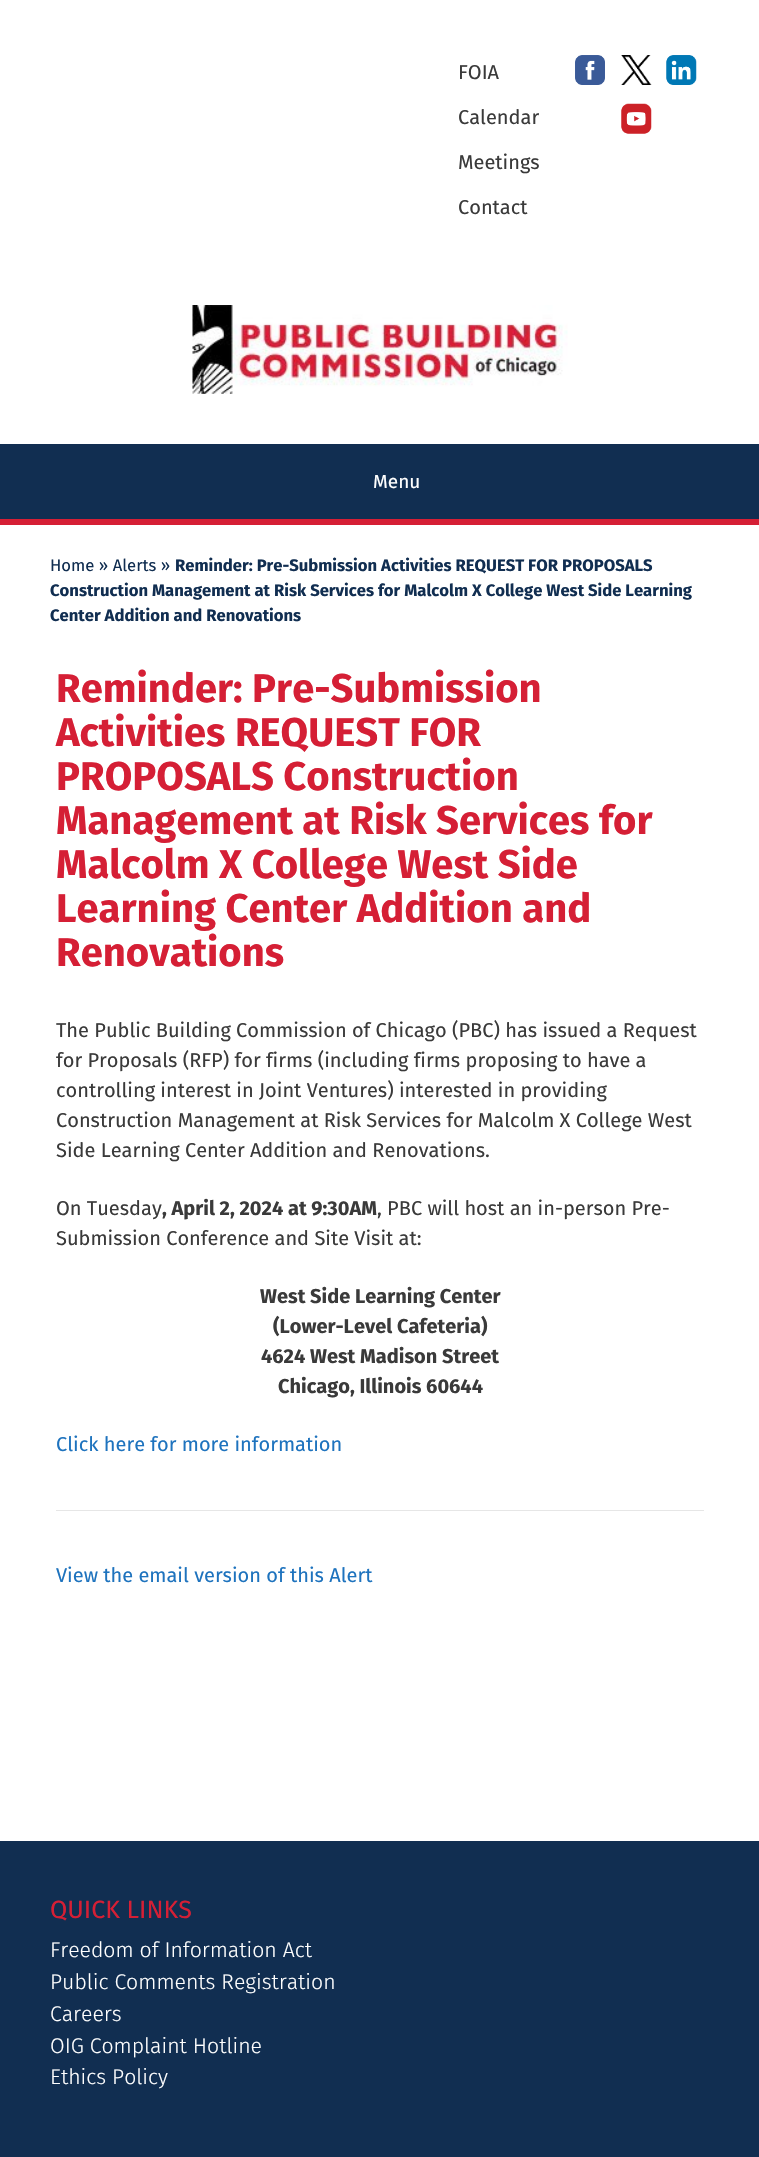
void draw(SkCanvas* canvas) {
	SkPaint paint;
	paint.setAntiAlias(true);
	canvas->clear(0xffffffff);
	SkFont f1(fontMgr->matchFamilyStyle("Fira Sans", SkFontStyle::Normal()), 20);
	f1.setSubpixel(true);
	paint.setColor(0xff3a3a3a);
	canvas->drawString("FOIA", 458, 79, f1, paint);
	canvas->drawString("Calendar", 458, 124, f1, paint);
	canvas->drawString("Meetings", 458, 169, f1, paint);
	canvas->drawString("Contact", 458, 214, f1, paint);
	canvas->drawImageRect(SkImages::DeferredFromEncodedData(SkData::MakeFromFileName("img1.png")), SkRect::MakeXYWH(575, 55, 30, 30), SkSamplingOptions());
	canvas->drawImageRect(SkImages::DeferredFromEncodedData(SkData::MakeFromFileName("img2.png")), SkRect::MakeXYWH(621, 55, 31, 30), SkSamplingOptions());
	canvas->drawImageRect(SkImages::DeferredFromEncodedData(SkData::MakeFromFileName("img3.png")), SkRect::MakeXYWH(666, 55, 31, 30), SkSamplingOptions());
	canvas->drawImageRect(SkImages::DeferredFromEncodedData(SkData::MakeFromFileName("img4.png")), SkRect::MakeXYWH(621, 103, 31, 31), SkSamplingOptions());
	canvas->drawImageRect(SkImages::DeferredFromEncodedData(SkData::MakeFromFileName("img5.png")), SkRect::MakeXYWH(192, 305, 376, 89), SkSamplingOptions());
	paint.setColor(0xff112e51);
	canvas->drawRect(SkRect::MakeXYWH(0, 444, 759, 75), paint);
	paint.setColor(0xffd51f35);
	canvas->drawRect(SkRect::MakeXYWH(0, 519, 759, 6), paint);
	SkFont f2(fontMgr->matchFamilyStyle("Fira Sans", SkFontStyle::Normal()), 19);
	f2.setSubpixel(true);
	paint.setColor(0xffffffff);
	canvas->drawString("Menu", 373, 488, f2, paint);
	SkFont f3(fontMgr->matchFamilyStyle("Fira Sans", SkFontStyle::Normal()), 16.65);
	f3.setSubpixel(true);
	paint.setColor(0xff112e51);
	canvas->drawString("Home » Alerts »", 50, 571, f3, paint);
	SkFont f4(fontMgr->matchFamilyStyle("Fira Sans", SkFontStyle::Bold()), 16.65);
	f4.setSubpixel(true);
	canvas->drawString("Reminder: Pre-Submission Activities REQUEST FOR PROPOSALS", 175, 571, f4, paint);
	canvas->drawString("Construction Management at Risk Services for Malcolm X College West Side Learning", 50, 596, f4, paint);
	canvas->drawString("Center Addition and Renovations", 50, 621, f4, paint);
	SkFont f5(fontMgr->matchFamilyStyle("Fira Sans", SkFontStyle::Bold()), 40);
	f5.setSubpixel(true);
	paint.setColor(0xffd51f35);
	canvas->drawString("Reminder: Pre-Submission", 56, 702, f5, paint);
	canvas->drawString("Activities REQUEST FOR", 56, 746, f5, paint);
	canvas->drawString("PROPOSALS Construction", 56, 790, f5, paint);
	canvas->drawString("Management at Risk Services for", 56, 834, f5, paint);
	canvas->drawString("Malcolm X College West Side", 56, 878, f5, paint);
	canvas->drawString("Learning Center Addition and", 56, 922, f5, paint);
	canvas->drawString("Renovations", 56, 966, f5, paint);
	paint.setColor(0xff3a3a3a);
	canvas->drawString("The Public Building Commission of Chicago (PBC) has issued a Request", 56, 1037, f1, paint);
	canvas->drawString("for Proposals (RFP) for firms (including firms proposing to have a", 56, 1067, f1, paint);
	canvas->drawString("controlling interest in Joint Ventures) interested in providing", 56, 1097, f1, paint);
	canvas->drawString("Construction Management at Risk Services for Malcolm X College West", 56, 1127, f1, paint);
	canvas->drawString("Side Learning Center Addition and Renovations.", 56, 1157, f1, paint);
	canvas->drawString("On Tuesday", 56, 1215, f1, paint);
	SkFont f6(fontMgr->matchFamilyStyle("Fira Sans", SkFontStyle::Bold()), 20);
	f6.setSubpixel(true);
	canvas->drawString(", April 2, 2024 at 9:30AM", 162, 1215, f6, paint);
	canvas->drawString(", PBC will host an in-person Pre-", 377, 1215, f1, paint);
	canvas->drawString("Submission Conference and Site Visit at:", 56, 1245, f1, paint);
	canvas->drawString("West Side Learning Center", 260, 1303, f6, paint);
	canvas->drawString("(Lower-Level Cafeteria)", 273, 1333, f6, paint);
	canvas->drawString("4624 West Madison Street", 261, 1363, f6, paint);
	canvas->drawString("Chicago, Illinois 60644", 278, 1393, f6, paint);
	paint.setColor(0xff1e73be);
	canvas->drawString("Click here for more information", 56, 1451, f1, paint);
	paint.setColor(0xffe6e6e6);
	canvas->drawRect(SkRect::MakeXYWH(56, 1510, 648, 1), paint);
	paint.setColor(0xff1e73be);
	canvas->drawString("View the email version of this Alert", 56, 1582, f1, paint);
	paint.setColor(0xff112e51);
	canvas->drawRect(SkRect::MakeXYWH(0, 1841, 759, 316), paint);
	SkFont f7(fontMgr->matchFamilyStyle("Fira Sans", SkFontStyle::Normal()), 25);
	f7.setSubpixel(true);
	paint.setColor(0xffd51f35);
	canvas->drawString("QUICK LINKS", 50, 1918, f7, paint);
	SkFont f8(fontMgr->matchFamilyStyle("Fira Sans", SkFontStyle(300, SkFontStyle::kNormal_Width, SkFontStyle::kUpright_Slant)), 21.25);
	f8.setSubpixel(true);
	paint.setColor(0xffffffff);
	canvas->drawString("Freedom of Information Act", 50, 1957, f8, paint);
	canvas->drawString("Public Comments Registration", 50, 1989, f8, paint);
	canvas->drawString("Careers", 50, 2021, f8, paint);
	canvas->drawString("OIG Complaint Hotline", 50, 2053, f8, paint);
	canvas->drawString("Ethics Policy", 50, 2084, f8, paint);
}
